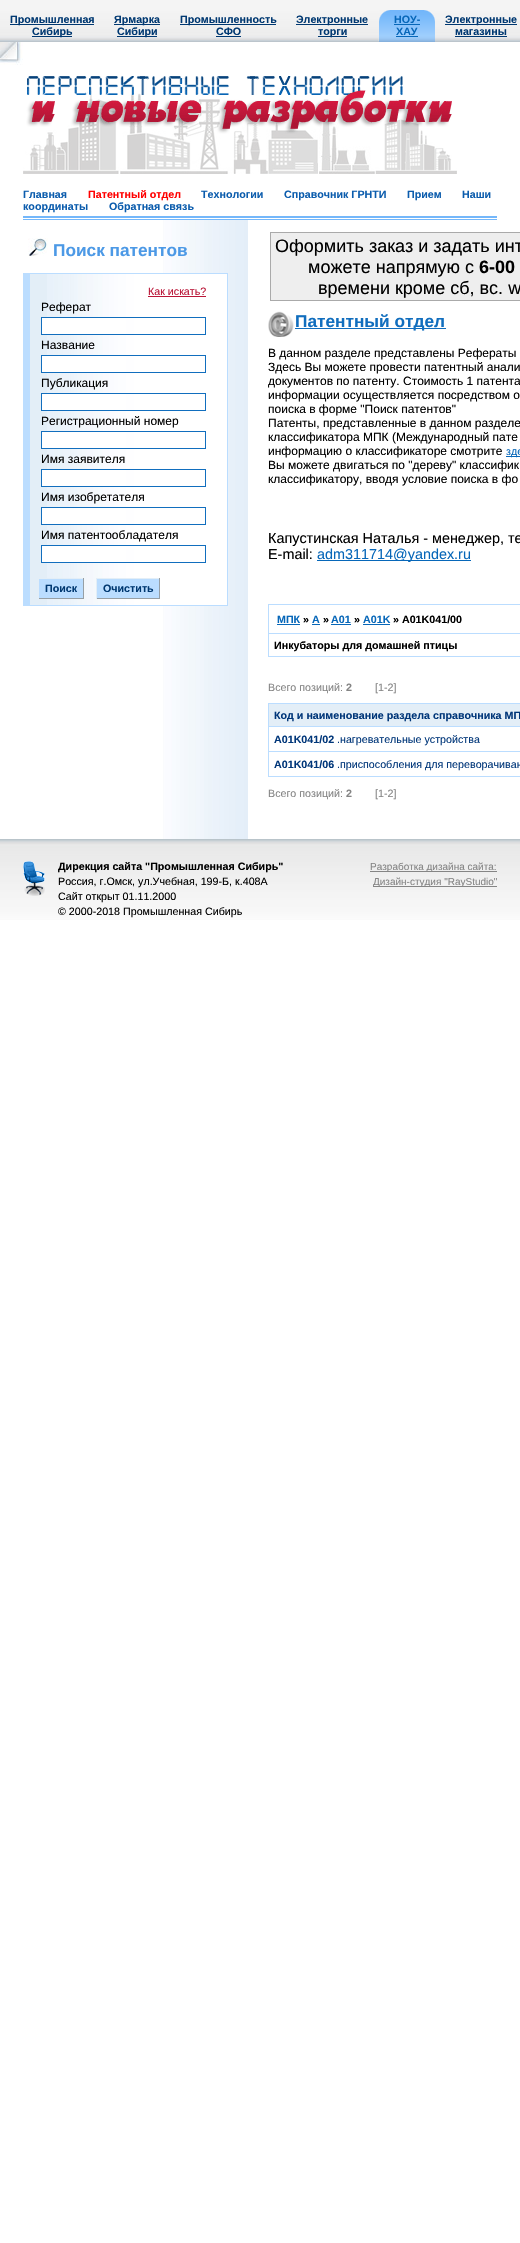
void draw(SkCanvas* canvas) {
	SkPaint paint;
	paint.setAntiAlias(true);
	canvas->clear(0xffffffff);
	canvas->drawImageRect(SkImages::DeferredFromEncodedData(SkData::MakeFromFileName("img1.png")), SkRect::MakeXYWH(0, 0, 520, 42), SkSamplingOptions());
	paint.setColor(0xff003871);
	canvas->drawRect(SkRect::MakeXYWH(10, 24, 84, 1), paint);
	SkFont f1(fontMgr->matchFamilyStyle("Liberation Sans", SkFontStyle::Bold()), 10.7);
	f1.setSubpixel(true);
	canvas->drawString("Промышленная", 10, 23, f1, paint);
	canvas->drawRect(SkRect::MakeXYWH(32, 36, 40, 1), paint);
	canvas->drawString("Сибирь", 32, 35, f1, paint);
	canvas->drawRect(SkRect::MakeXYWH(114, 24, 46, 1), paint);
	canvas->drawString("Ярмарка", 114, 23, f1, paint);
	canvas->drawRect(SkRect::MakeXYWH(117, 36, 40, 1), paint);
	canvas->drawString("Сибири", 117, 35, f1, paint);
	canvas->drawRect(SkRect::MakeXYWH(180, 24, 96, 1), paint);
	canvas->drawString("Промышленность", 180, 23, f1, paint);
	canvas->drawString("СФО", 216, 35, f1, paint);
	canvas->drawRect(SkRect::MakeXYWH(216, 36, 25, 1), paint);
	canvas->drawRect(SkRect::MakeXYWH(296, 24, 72, 1), paint);
	canvas->drawString("Электронные", 296, 23, f1, paint);
	canvas->drawRect(SkRect::MakeXYWH(318, 36, 29, 1), paint);
	canvas->drawString("торги", 318, 35, f1, paint);
	canvas->drawImageRect(SkImages::DeferredFromEncodedData(SkData::MakeFromFileName("img2.png")), SkRect::MakeXYWH(379, 10, 15, 32), SkSamplingOptions());
	canvas->drawImageRect(SkImages::DeferredFromEncodedData(SkData::MakeFromFileName("img3.png")), SkRect::MakeXYWH(394, 10, 26, 32), SkSamplingOptions());
	paint.setColor(0xff0767b9);
	canvas->drawString("НОУ-", 394, 23, f1, paint);
	canvas->drawRect(SkRect::MakeXYWH(394, 24, 26, 1), paint);
	canvas->drawString("ХАУ", 396, 35, f1, paint);
	canvas->drawRect(SkRect::MakeXYWH(396, 36, 22, 1), paint);
	canvas->drawImageRect(SkImages::DeferredFromEncodedData(SkData::MakeFromFileName("img4.png")), SkRect::MakeXYWH(420, 10, 15, 32), SkSamplingOptions());
	paint.setColor(0xff003871);
	canvas->drawRect(SkRect::MakeXYWH(445, 24, 72, 1), paint);
	canvas->drawString("Электронные", 445, 23, f1, paint);
	canvas->drawString("магазины", 455, 35, f1, paint);
	canvas->drawRect(SkRect::MakeXYWH(455, 36, 52, 1), paint);
	canvas->drawImageRect(SkImages::DeferredFromEncodedData(SkData::MakeFromFileName("img5.png")), SkRect::MakeXYWH(378, 38, 1, 3), SkSamplingOptions());
	canvas->drawImageRect(SkImages::DeferredFromEncodedData(SkData::MakeFromFileName("img6.png")), SkRect::MakeXYWH(0, 42, 23, 23), SkSamplingOptions());
	canvas->drawImageRect(SkImages::DeferredFromEncodedData(SkData::MakeFromFileName("img7.png")), SkRect::MakeXYWH(23, 76, 434, 98), SkSamplingOptions());
	canvas->drawImageRect(SkImages::DeferredFromEncodedData(SkData::MakeFromFileName("img8.png")), SkRect::MakeXYWH(23, 216, 474, 4), SkSamplingOptions());
	paint.setColor(0xff0b5cad);
	canvas->drawString("Главная", 23, 198, f1, paint);
	paint.setColor(0xffff0000);
	canvas->drawString("Патентный отдел", 88, 198, f1, paint);
	paint.setColor(0xff0b5cad);
	canvas->drawString("Технологии", 201, 198, f1, paint);
	canvas->drawString("Справочник ГРНТИ", 284, 198, f1, paint);
	canvas->drawString("Прием", 407, 198, f1, paint);
	canvas->drawString("Наши", 462, 198, f1, paint);
	canvas->drawString("координаты", 23, 210, f1, paint);
	canvas->drawString("Обратная связь", 109, 210, f1, paint);
	canvas->drawImageRect(SkImages::DeferredFromEncodedData(SkData::MakeFromFileName("img9.png")), SkRect::MakeXYWH(163, 220, 85, 619), SkSamplingOptions());
	canvas->drawImageRect(SkImages::DeferredFromEncodedData(SkData::MakeFromFileName("img10.png")), SkRect::MakeXYWH(28, 238, 20, 18), SkSamplingOptions());
	SkFont f2(fontMgr->matchFamilyStyle("Liberation Sans", SkFontStyle::Bold()), 17.25);
	f2.setSubpixel(true);
	paint.setColor(0xff4c99e6);
	canvas->drawString("Поиск патентов", 53, 256, f2, paint);
	paint.setColor(0xffbbddff);
	canvas->drawRect(SkRect::MakeXYWH(23, 273, 205, 333), paint);
	paint.setColor(0xffe3eef7);
	canvas->drawRect(SkRect::MakeXYWH(30, 274, 17, 331), paint);
	canvas->drawImageRect(SkImages::DeferredFromEncodedData(SkData::MakeFromFileName("img11.png")), SkRect::MakeXYWH(47, 274, 180, 331), SkSamplingOptions());
	SkFont f3(fontMgr->matchFamilyStyle("Liberation Sans", SkFontStyle::Normal()), 10.7);
	f3.setSubpixel(true);
	paint.setColor(0xffba1638);
	canvas->drawString("Как искать?", 148, 295, f3, paint);
	canvas->drawRect(SkRect::MakeXYWH(148, 296, 58, 1), paint);
	SkFont f4(fontMgr->matchFamilyStyle("Liberation Sans", SkFontStyle::Normal()), 12);
	f4.setSubpixel(true);
	paint.setColor(0xff000000);
	canvas->drawString("Реферат", 41, 311, f4, paint);
	paint.setColor(0xffffffff);
	canvas->drawRect(SkRect::MakeXYWH(42, 318, 84, 16), paint);
	paint.setStroke(true);
	paint.setStrokeWidth(1);
	paint.setColor(0xff116ebe);
	canvas->drawRect(SkRect::MakeXYWH(41.5, 317.5, 164, 17), paint);
	paint.setStroke(false);
	paint.setColor(0xff000000);
	canvas->drawString("Название", 41, 349, f4, paint);
	paint.setColor(0xffffffff);
	canvas->drawRect(SkRect::MakeXYWH(42, 356, 84, 16), paint);
	paint.setStroke(true);
	paint.setColor(0xff116ebe);
	canvas->drawRect(SkRect::MakeXYWH(41.5, 355.5, 164, 17), paint);
	paint.setStroke(false);
	paint.setColor(0xff000000);
	canvas->drawString("Публикация", 41, 387, f4, paint);
	paint.setColor(0xffffffff);
	canvas->drawRect(SkRect::MakeXYWH(42, 394, 84, 16), paint);
	paint.setStroke(true);
	paint.setColor(0xff116ebe);
	canvas->drawRect(SkRect::MakeXYWH(41.5, 393.5, 164, 17), paint);
	paint.setStroke(false);
	paint.setColor(0xff000000);
	canvas->drawString("Регистрационный номер", 41, 425, f4, paint);
	paint.setColor(0xffffffff);
	canvas->drawRect(SkRect::MakeXYWH(42, 432, 84, 16), paint);
	paint.setStroke(true);
	paint.setColor(0xff116ebe);
	canvas->drawRect(SkRect::MakeXYWH(41.5, 431.5, 164, 17), paint);
	paint.setStroke(false);
	paint.setColor(0xff000000);
	canvas->drawString("Имя заявителя", 41, 463, f4, paint);
	paint.setColor(0xffffffff);
	canvas->drawRect(SkRect::MakeXYWH(42, 470, 84, 16), paint);
	paint.setStroke(true);
	paint.setColor(0xff116ebe);
	canvas->drawRect(SkRect::MakeXYWH(41.5, 469.5, 164, 17), paint);
	paint.setStroke(false);
	paint.setColor(0xff000000);
	canvas->drawString("Имя изобретателя", 41, 501, f4, paint);
	paint.setColor(0xffffffff);
	canvas->drawRect(SkRect::MakeXYWH(42, 508, 84, 16), paint);
	paint.setStroke(true);
	paint.setColor(0xff116ebe);
	canvas->drawRect(SkRect::MakeXYWH(41.5, 507.5, 164, 17), paint);
	paint.setStroke(false);
	paint.setColor(0xff000000);
	canvas->drawString("Имя патентообладателя", 41, 539, f4, paint);
	paint.setColor(0xffffffff);
	canvas->drawRect(SkRect::MakeXYWH(42, 546, 84, 16), paint);
	paint.setStroke(true);
	paint.setColor(0xff116ebe);
	canvas->drawRect(SkRect::MakeXYWH(41.5, 545.5, 164, 17), paint);
	paint.setStroke(false);
	paint.setColor(0xffbbddff);
	canvas->drawRect(SkRect::MakeXYWH(39, 579, 44, 19), paint);
	paint.setColor(0xffe3eef7);
	canvas->drawRect(SkRect::MakeXYWH(47, 578, 37, 1), paint);
	paint.setColor(0xff979fa5);
	canvas->drawRect(SkRect::MakeXYWH(83, 578, 1, 21), paint);
	canvas->drawRect(SkRect::MakeXYWH(38, 598, 46, 1), paint);
	paint.setColor(0xffe3eef7);
	canvas->drawRect(SkRect::MakeXYWH(38, 598, 1, 1), paint);
	paint.setColor(0xff003871);
	canvas->drawString("Поиск", 45, 592, f1, paint);
	paint.setColor(0xffbbddff);
	canvas->drawRect(SkRect::MakeXYWH(97, 579, 62, 19), paint);
	paint.setColor(0xffe3eef7);
	canvas->drawRect(SkRect::MakeXYWH(96, 578, 64, 1), paint);
	paint.setColor(0xff979fa5);
	canvas->drawRect(SkRect::MakeXYWH(159, 578, 1, 21), paint);
	canvas->drawRect(SkRect::MakeXYWH(96, 598, 64, 1), paint);
	paint.setColor(0xffe3eef7);
	canvas->drawRect(SkRect::MakeXYWH(96, 578, 1, 21), paint);
	paint.setColor(0xff003871);
	canvas->drawString("Очистить", 103, 592, f1, paint);
	paint.setColor(0xffeeeeee);
	canvas->drawRect(SkRect::MakeXYWH(270.5, 232.5, 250, 68), paint);
	paint.setStroke(true);
	paint.setColor(0xffaaaaaa);
	canvas->drawRect(SkRect::MakeXYWH(270.5, 232.5, 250, 68), paint);
	SkFont f5(fontMgr->matchFamilyStyle("Liberation Sans", SkFontStyle::Normal()), 18);
	f5.setSubpixel(true);
	paint.setStroke(false);
	paint.setColor(0xff000000);
	canvas->drawString("Оформить заказ и задать инт", 275, 252, f5, paint);
	canvas->drawString("можете напрямую c", 308, 273, f5, paint);
	SkFont f6(fontMgr->matchFamilyStyle("Liberation Sans", SkFontStyle::Bold()), 18);
	f6.setSubpixel(true);
	canvas->drawString("6-00", 479, 273, f6, paint);
	canvas->drawString("времени кроме сб, вс. w", 318, 294, f5, paint);
	canvas->drawImageRect(SkImages::DeferredFromEncodedData(SkData::MakeFromFileName("img12.png")), SkRect::MakeXYWH(268, 311, 26, 26), SkSamplingOptions());
	paint.setColor(0xff116ebe);
	canvas->drawRect(SkRect::MakeXYWH(295, 328, 151, 1), paint);
	canvas->drawString("Патентный отдел", 295, 327, f2, paint);
	paint.setColor(0xff000000);
	canvas->drawString("В данном разделе представлены Рефераты", 268, 357, f4, paint);
	canvas->drawString("Здесь Вы можете провести патентный анали", 268, 371, f4, paint);
	canvas->drawString("документов по патенту. Стоимость 1 патента", 268, 385, f4, paint);
	canvas->drawString("информации осуществляется посредством о", 268, 399, f4, paint);
	canvas->drawString("поиска в форме \"Поиск патентов\"", 268, 413, f4, paint);
	canvas->drawString("Патенты, представленные в данном разделе", 268, 427, f4, paint);
	canvas->drawString("классификатора МПК (Международный пате", 268, 441, f4, paint);
	canvas->drawString("информацию о классификаторе смотрите", 268, 455, f4, paint);
	paint.setColor(0xff0767b9);
	canvas->drawRect(SkRect::MakeXYWH(506, 456, 14, 1), paint);
	canvas->drawString("зде", 506, 455, f3, paint);
	paint.setColor(0xff000000);
	canvas->drawString("Вы можете двигаться по \"дереву\" классифик", 268, 469, f4, paint);
	canvas->drawString("классификатору, вводя условие поиска в фо", 268, 483, f4, paint);
	SkFont f7(fontMgr->matchFamilyStyle("Liberation Sans", SkFontStyle::Normal()), 14.4);
	f7.setSubpixel(true);
	canvas->drawString("Капустинская Наталья - менеджер, те", 268, 543, f7, paint);
	canvas->drawString("E-mail:", 268, 559, f7, paint);
	paint.setColor(0xff0767b9);
	canvas->drawRect(SkRect::MakeXYWH(317, 560, 154, 1), paint);
	canvas->drawString("adm311714@yandex.ru", 317, 559, f7, paint);
	paint.setColor(0xffbbddff);
	canvas->drawRect(SkRect::MakeXYWH(268, 604, 252, 53), paint);
	paint.setColor(0xffffffff);
	canvas->drawRect(SkRect::MakeXYWH(269, 605, 251, 28), paint);
	paint.setColor(0xff0767b9);
	canvas->drawString("МПК", 277, 623, f1, paint);
	canvas->drawRect(SkRect::MakeXYWH(277, 624, 23, 1), paint);
	paint.setColor(0xff000000);
	canvas->drawString("»", 303, 623, f1, paint);
	paint.setColor(0xff0767b9);
	canvas->drawRect(SkRect::MakeXYWH(312, 624, 8, 1), paint);
	canvas->drawString("A", 312, 623, f1, paint);
	paint.setColor(0xff000000);
	canvas->drawString("»", 323, 623, f1, paint);
	paint.setColor(0xff0767b9);
	canvas->drawString("A01", 331, 623, f1, paint);
	canvas->drawRect(SkRect::MakeXYWH(331, 624, 20, 1), paint);
	paint.setColor(0xff000000);
	canvas->drawString("»", 354, 623, f1, paint);
	paint.setColor(0xff0767b9);
	canvas->drawString("A01K", 363, 623, f1, paint);
	canvas->drawRect(SkRect::MakeXYWH(363, 624, 27, 1), paint);
	paint.setColor(0xff000000);
	canvas->drawString("» A01K041/00", 393, 623, f1, paint);
	paint.setColor(0xffffffff);
	canvas->drawRect(SkRect::MakeXYWH(269, 634, 251, 22), paint);
	paint.setColor(0xff000000);
	canvas->drawString("Инкубаторы для домашней птицы", 274, 649, f1, paint);
	paint.setColor(0xff858585);
	canvas->drawString("Всего позиций:", 268, 691, f3, paint);
	canvas->drawString("2", 346, 691, f1, paint);
	canvas->drawString("[1-2]", 375, 691, f3, paint);
	paint.setColor(0xffbbddff);
	canvas->drawRect(SkRect::MakeXYWH(268, 703, 252, 74), paint);
	paint.setColor(0xffe3eef7);
	canvas->drawRect(SkRect::MakeXYWH(269, 704, 251, 22), paint);
	paint.setColor(0xff003679);
	canvas->drawString("Код и наименование раздела справочника МП", 274, 719, f1, paint);
	paint.setColor(0xffffffff);
	canvas->drawRect(SkRect::MakeXYWH(269, 727, 251, 24), paint);
	paint.setColor(0xff003679);
	canvas->drawString("A01K041/02", 274, 743, f1, paint);
	canvas->drawString(".нагревательные устройства", 337, 743, f3, paint);
	paint.setColor(0xffffffff);
	canvas->drawRect(SkRect::MakeXYWH(269, 752, 251, 24), paint);
	paint.setColor(0xff003679);
	canvas->drawString("A01K041/06", 274, 768, f1, paint);
	canvas->drawString(".приспособления для переворачиван", 337, 768, f3, paint);
	paint.setColor(0xff858585);
	canvas->drawString("Всего позиций:", 268, 797, f3, paint);
	canvas->drawString("2", 346, 797, f1, paint);
	canvas->drawString("[1-2]", 375, 797, f3, paint);
	canvas->drawImageRect(SkImages::DeferredFromEncodedData(SkData::MakeFromFileName("img13.png")), SkRect::MakeXYWH(0, 839, 520, 81), SkSamplingOptions());
	canvas->drawImageRect(SkImages::DeferredFromEncodedData(SkData::MakeFromFileName("img14.png")), SkRect::MakeXYWH(23, 861, 22, 35), SkSamplingOptions());
	paint.setColor(0xff000000);
	canvas->drawString("Дирекция сайта \"Промышленная Сибирь\"", 58, 870, f1, paint);
	canvas->drawString("Россия, г.Омск, ул.Учебная, 199-Б, к.408А", 58, 885, f3, paint);
	canvas->drawString("Сайт открыт 01.11.2000", 58, 900, f3, paint);
	canvas->drawString("© 2000-2018 Промышленная Сибирь", 58, 915, f3, paint);
	paint.setColor(0xff858585);
	canvas->drawRect(SkRect::MakeXYWH(370, 871, 127, 1), paint);
	SkFont f8(fontMgr->matchFamilyStyle("Liberation Sans", SkFontStyle::Normal()), 10);
	f8.setSubpixel(true);
	canvas->drawString("Разработка дизайна сайта:", 370, 870, f8, paint);
	canvas->drawRect(SkRect::MakeXYWH(373, 886, 124, 1), paint);
	canvas->drawString("Дизайн-студия \"RayStudio\"", 373, 885, f8, paint);
}
